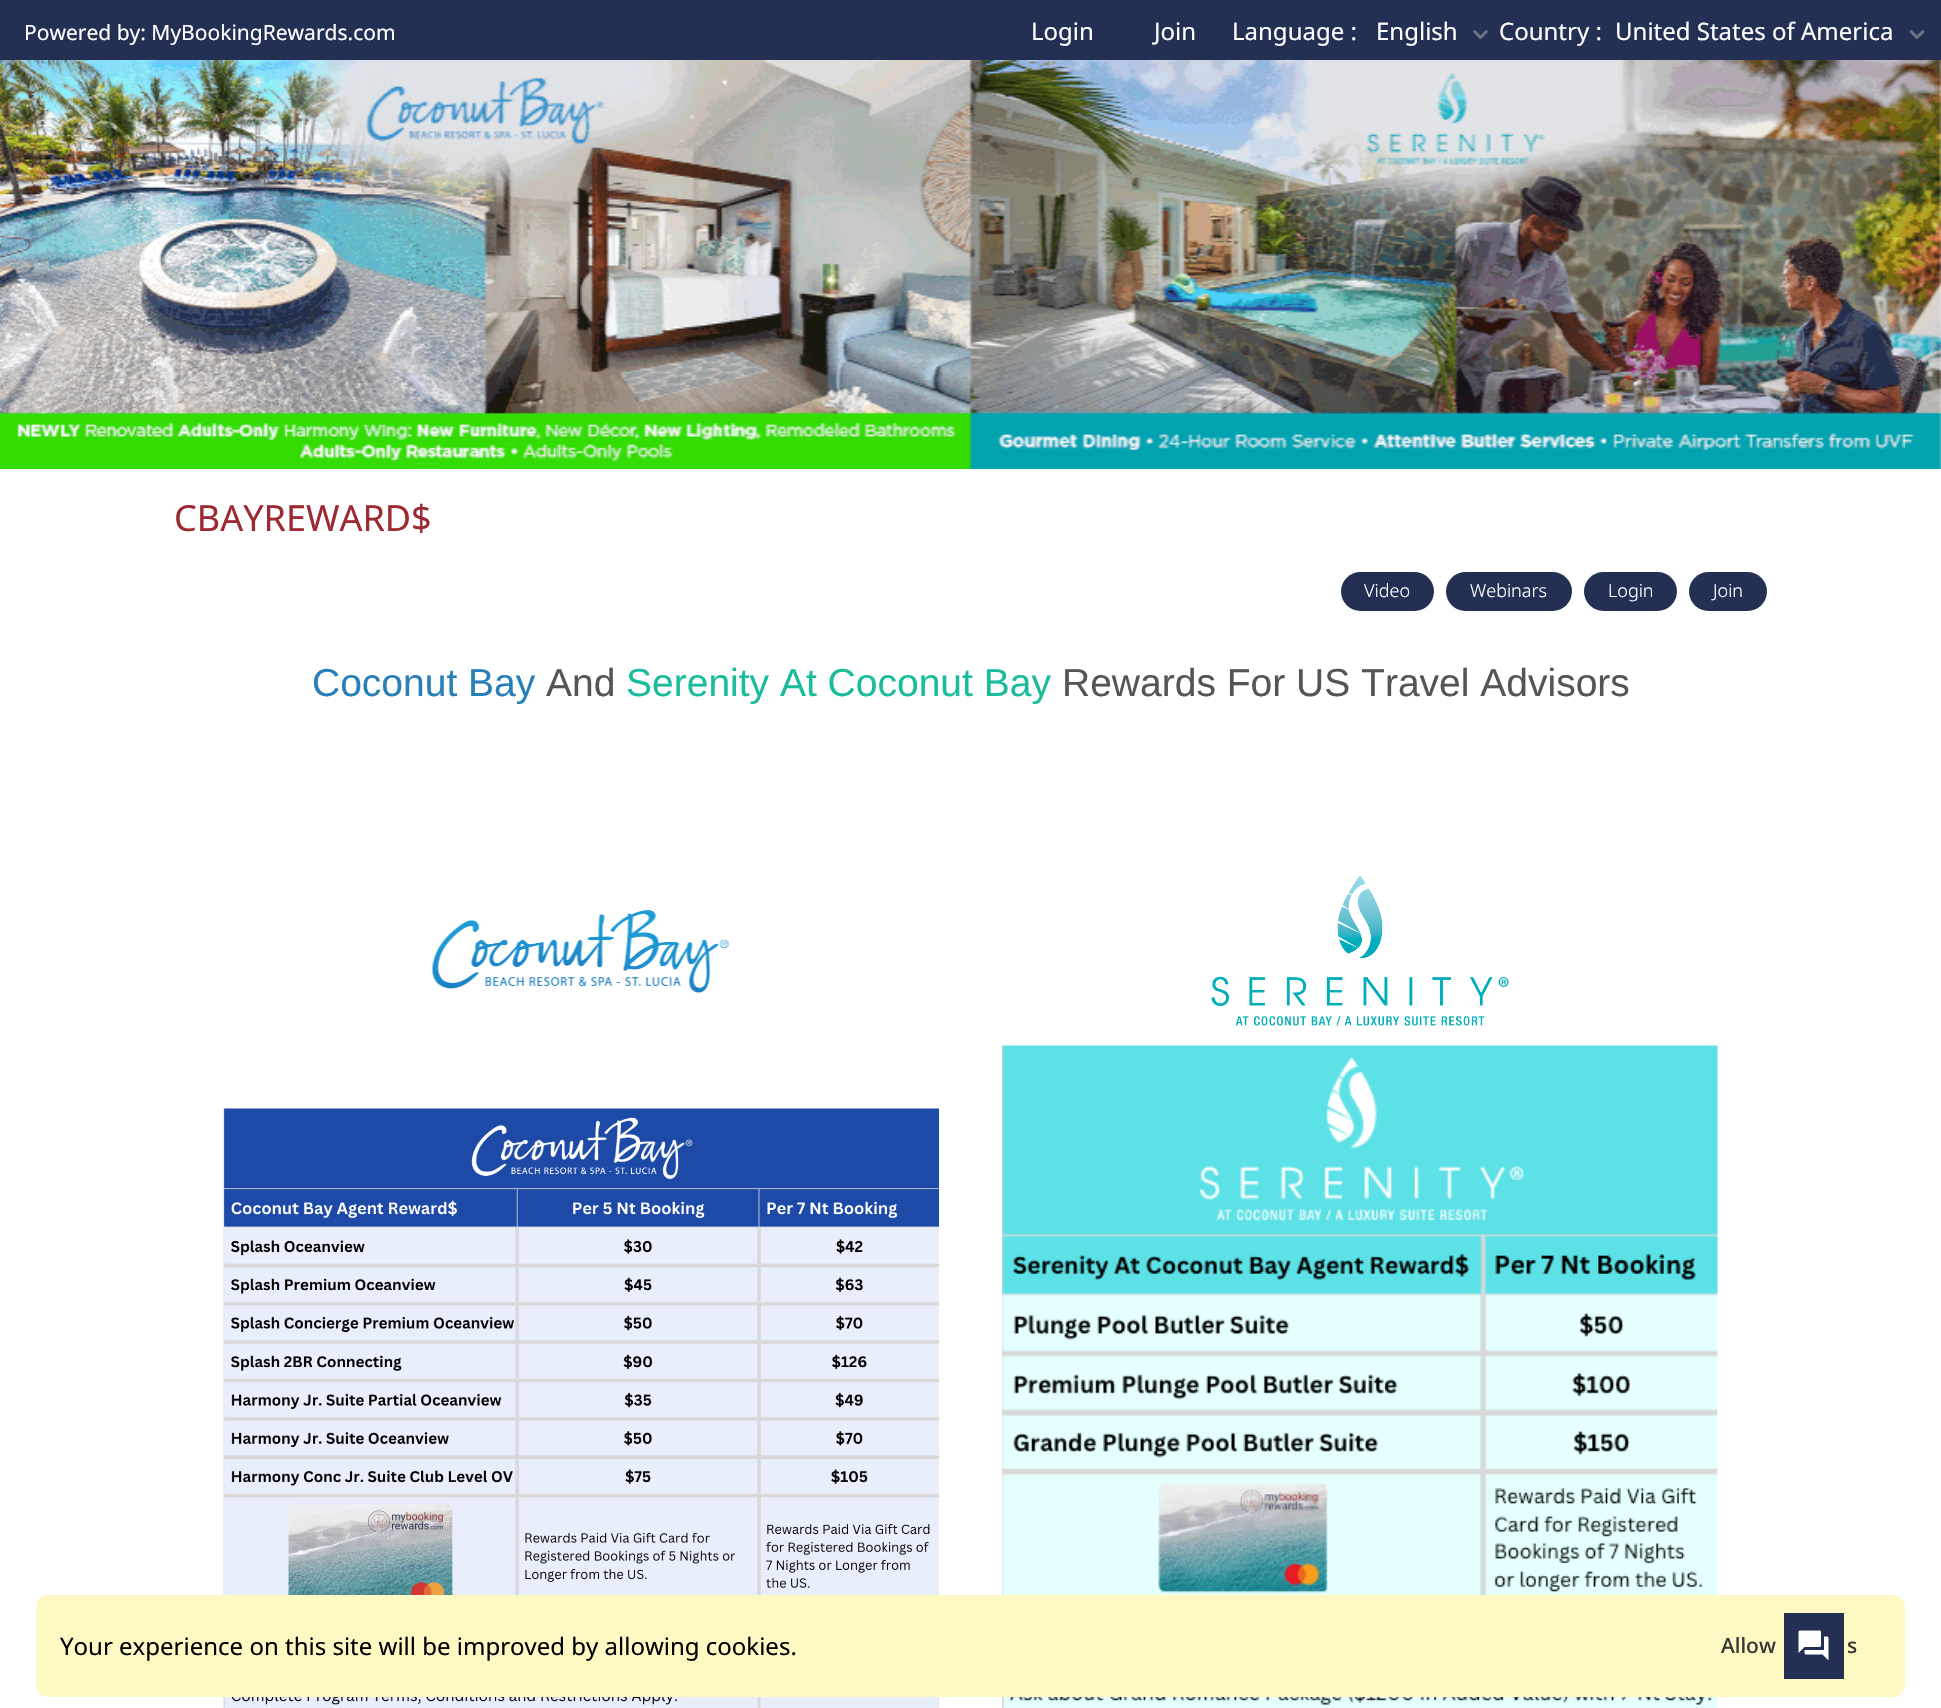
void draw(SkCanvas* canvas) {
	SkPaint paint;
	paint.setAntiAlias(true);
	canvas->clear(0xffffffff);
	paint.setColor(0xff242f54);
	canvas->drawRect(SkRect::MakeXYWH(0, 0, 1941, 60), paint);
	SkFont f1(fontMgr->matchFamilyStyle("Noto Sans", SkFontStyle::Normal()), 21);
	f1.setSubpixel(true);
	paint.setColor(0xffffffff);
	canvas->drawString("Powered by: MyBookingRewards.com", 24, 40, f1, paint);
	SkFont f2(fontMgr->matchFamilyStyle("Noto Sans", SkFontStyle::Normal()), 24);
	f2.setSubpixel(true);
	canvas->drawString("Login", 1031, 40, f2, paint);
	canvas->drawString("Join", 1154, 40, f2, paint);
	canvas->drawString("Language :", 1232, 40, f2, paint);
	canvas->drawString("English", 1376, 40, f2, paint);
	canvas->drawImageRect(SkImages::DeferredFromEncodedData(SkData::MakeFromFileName("img1.png")), SkRect::MakeXYWH(1473, 30, 15, 9), SkSamplingOptions());
	canvas->drawString("Country :", 1499, 40, f2, paint);
	canvas->drawString("United States of America", 1615, 40, f2, paint);
	canvas->drawImageRect(SkImages::DeferredFromEncodedData(SkData::MakeFromFileName("img2.png")), SkRect::MakeXYWH(1909, 30, 16, 9), SkSamplingOptions());
	canvas->drawImageRect(SkImages::DeferredFromEncodedData(SkData::MakeFromFileName("img3.png")), SkRect::MakeXYWH(0, 60, 1941, 409), SkSamplingOptions());
	SkFont f3(fontMgr->matchFamilyStyle("Noto Sans", SkFontStyle::Normal()), 36);
	f3.setSubpixel(true);
	paint.setColor(0xff9d2932);
	canvas->drawString("CBAYREWARD$", 174, 531, f3, paint);
	paint.setColor(0xff242f54);
	canvas->drawRoundRect(SkRect::MakeXYWH(1341, 572, 93, 39), 19.5, 19.5, paint);
	SkFont f4(fontMgr->matchFamilyStyle("Noto Sans", SkFontStyle(300, SkFontStyle::kNormal_Width, SkFontStyle::kUpright_Slant)), 18);
	f4.setSubpixel(true);
	paint.setColor(0xffffffff);
	canvas->drawString("Video", 1364, 597, f4, paint);
	paint.setColor(0xff242f54);
	canvas->drawRoundRect(SkRect::MakeXYWH(1446, 572, 126, 39), 19.5, 19.5, paint);
	paint.setColor(0xffffffff);
	canvas->drawString("Webinars", 1470, 597, f4, paint);
	paint.setColor(0xff242f54);
	canvas->drawRoundRect(SkRect::MakeXYWH(1584, 572, 93, 39), 19.5, 19.5, paint);
	paint.setColor(0xffffffff);
	canvas->drawString("Login", 1608, 597, f4, paint);
	paint.setColor(0xff242f54);
	canvas->drawRoundRect(SkRect::MakeXYWH(1689, 572, 78, 39), 19.5, 19.5, paint);
	paint.setColor(0xffffffff);
	canvas->drawString("Join", 1713, 597, f4, paint);
	SkFont f5(fontMgr->matchFamilyStyle("Liberation Sans", SkFontStyle::Normal()), 39);
	f5.setSubpixel(true);
	paint.setColor(0xff2980b9);
	canvas->drawString("Coconut Bay", 312, 696, f5, paint);
	paint.setColor(0xff555555);
	canvas->drawString("And", 546, 696, f5, paint);
	paint.setColor(0xff1abc9c);
	canvas->drawString("Serenity At Coconut Bay", 626, 696, f5, paint);
	paint.setColor(0xff555555);
	canvas->drawString("Rewards For US Travel Advisors", 1062, 696, f5, paint);
	canvas->drawImageRect(SkImages::DeferredFromEncodedData(SkData::MakeFromFileName("img4.png")), SkRect::MakeXYWH(432, 910, 297, 83), SkSamplingOptions());
	canvas->drawImageRect(SkImages::DeferredFromEncodedData(SkData::MakeFromFileName("img5.png")), SkRect::MakeXYWH(1211, 875, 298, 151), SkSamplingOptions());
	canvas->drawImageRect(SkImages::DeferredFromEncodedData(SkData::MakeFromFileName("img6.png")), SkRect::MakeXYWH(223, 1108, 716, 600), SkSamplingOptions());
	canvas->drawImageRect(SkImages::DeferredFromEncodedData(SkData::MakeFromFileName("img7.png")), SkRect::MakeXYWH(1002, 1045, 716, 663), SkSamplingOptions());
	paint.setColor(0xfffef9c3);
	canvas->drawRoundRect(SkRect::MakeXYWH(36, 1595, 1869, 102), 12, 12, paint);
	paint.setColor(0xff242f54);
	canvas->drawRect(SkRect::MakeXYWH(1784, 1613, 60, 66), paint);
	canvas->drawImageRect(SkImages::DeferredFromEncodedData(SkData::MakeFromFileName("img8.png")), SkRect::MakeXYWH(1798, 1630, 31, 31), SkSamplingOptions());
	paint.setColor(0xff000000);
	canvas->drawString("Your experience on this site will be improved by allowing cookies.", 60, 1655, f2, paint);
	SkFont f6(fontMgr->matchFamilyStyle("Noto Sans", SkFontStyle(500, SkFontStyle::kNormal_Width, SkFontStyle::kUpright_Slant)), 21);
	f6.setSubpixel(true);
	paint.setColor(0xff363636);
	canvas->drawString("Allow", 1721, 1653, f6, paint);
	canvas->drawString("s", 1847, 1653, f6, paint);
}
